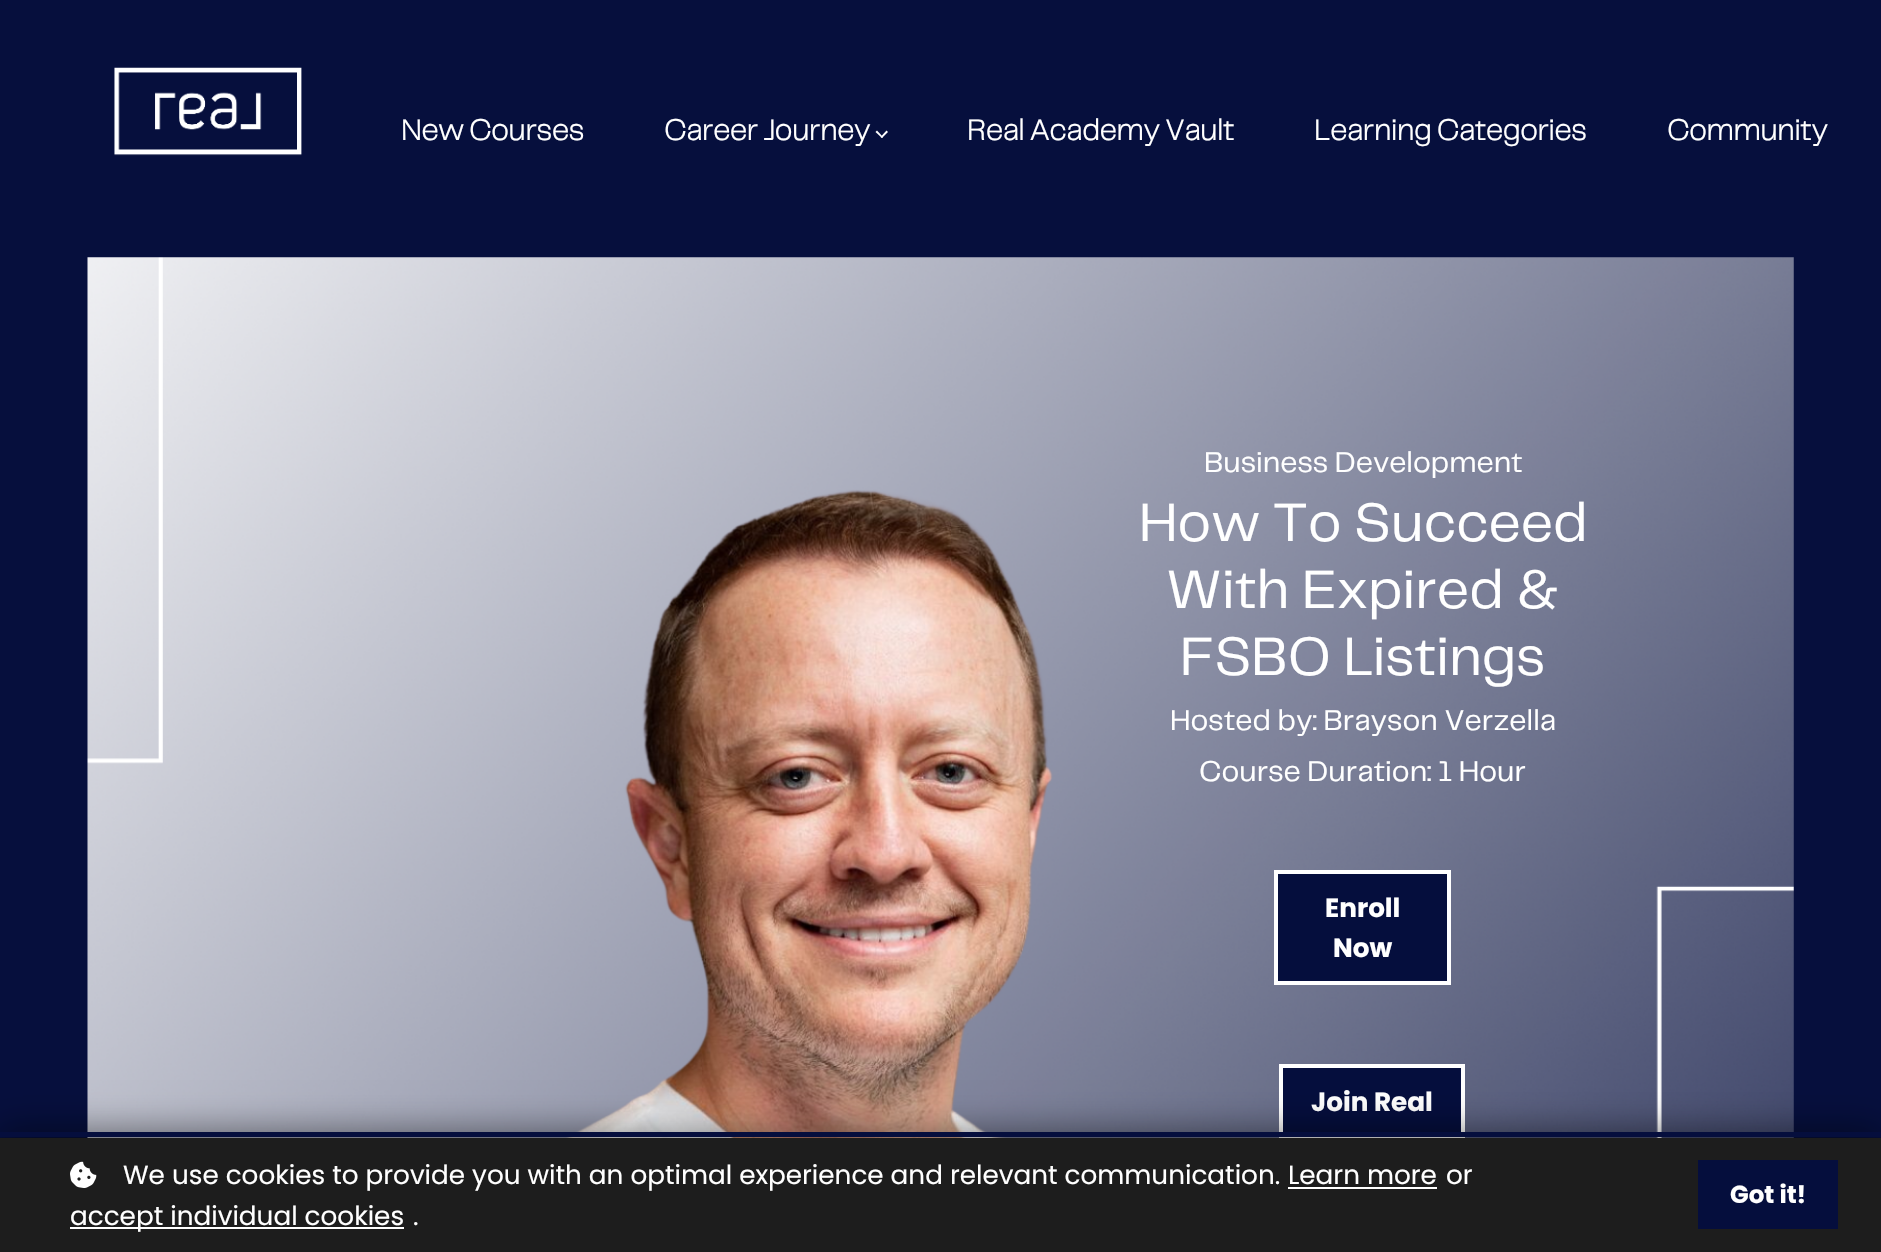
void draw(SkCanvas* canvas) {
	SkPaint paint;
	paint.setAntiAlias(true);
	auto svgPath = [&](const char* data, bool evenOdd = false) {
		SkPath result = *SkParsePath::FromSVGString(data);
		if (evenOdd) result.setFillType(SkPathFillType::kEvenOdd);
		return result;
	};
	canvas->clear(0xff060f3d);
	canvas->drawImageRect(SkImages::DeferredFromEncodedData(SkData::MakeFromFileName("img1.png")), SkRect::MakeXYWH(114, 67, 188, 89), SkSamplingOptions());
	SkFont f1(fontMgr->matchFamilyStyle("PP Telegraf", SkFontStyle::Bold()), 29.75);
	f1.setSubpixel(true);
	paint.setColor(0xffffffff);
	canvas->drawString("New Courses", 401, 140, f1, paint);
	canvas->drawString("Career Journey", 664, 140, f1, paint);
	canvas->drawPath(svgPath("M888 132L882 138L880.5 137L886.5 130.5Z"), paint);
	canvas->drawPath(svgPath("M883 137L882 138L875.5 132L877 130.5Z"), paint);
	canvas->drawString("Real Academy Vault", 967, 140, f1, paint);
	canvas->drawString("Learning Categories", 1314, 140, f1, paint);
	canvas->drawString("Community", 1667, 140, f1, paint);
	canvas->drawImageRect(SkImages::DeferredFromEncodedData(SkData::MakeFromFileName("img2.png")), SkRect::MakeXYWH(87, 257, 1707, 881), SkSamplingOptions());
	SkFont f2(fontMgr->matchFamilyStyle("PP Telegraf", SkFontStyle::Normal()), 29.75);
	f2.setSubpixel(true);
	canvas->drawString("Business Development", 1204, 472, f2, paint);
	SkFont f3(fontMgr->matchFamilyStyle("PP Telegraf", SkFontStyle::Normal()), 56);
	f3.setSubpixel(true);
	canvas->drawString("How To Succeed", 1139, 541, f3, paint);
	canvas->drawString("With Expired &", 1166, 608, f3, paint);
	canvas->drawString("FSBO Listings", 1180, 675, f3, paint);
	canvas->drawString("Hosted by: Brayson Verzella", 1170, 730, f2, paint);
	canvas->drawString("Course Duration: 1 Hour", 1199, 781, f2, paint);
	paint.setColor(0xff050e3d);
	canvas->drawRect(SkRect::MakeXYWH(1276, 872, 173, 111), paint);
	paint.setStroke(true);
	paint.setStrokeWidth(4);
	paint.setColor(0xffffffff);
	canvas->drawRect(SkRect::MakeXYWH(1276, 872, 173, 111), paint);
	SkFont f4(fontMgr->matchFamilyStyle("Poppins", SkFontStyle::Bold()), 26.25);
	f4.setSubpixel(true);
	paint.setStroke(false);
	canvas->drawString("Enroll", 1325, 917, f4, paint);
	canvas->drawString("Now", 1333, 957, f4, paint);
	paint.setColor(0xff050e3d);
	canvas->drawRect(SkRect::MakeXYWH(1283, 1068, 178, 64), paint);
	paint.setStroke(true);
	paint.setColor(0xffffffff);
	canvas->drawRect(SkRect::MakeXYWH(1281, 1066, 182, 71), paint);
	paint.setStroke(false);
	canvas->drawString("Join Real", 1311, 1111, f4, paint);
	paint.setColor(0x80000000);
	paint.setMaskFilter(SkMaskFilter::MakeBlur(kNormal_SkBlurStyle, 17.5));
	canvas->drawRect(SkRect::MakeXYWH(0, 1132, 1881, 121), paint);
	paint.setMaskFilter(nullptr);
	paint.setColor(0xff1d1d1d);
	canvas->drawRect(SkRect::MakeXYWH(0, 1138, 1881, 114), paint);
	paint.setColor(0xff050e3d);
	canvas->drawRect(SkRect::MakeXYWH(0, 1132, 1881, 5), paint);
	canvas->drawImageRect(SkImages::DeferredFromEncodedData(SkData::MakeFromFileName("img3.png")), SkRect::MakeXYWH(70, 1161, 27, 27), SkSamplingOptions());
	SkFont f5(fontMgr->matchFamilyStyle("Poppins", SkFontStyle::Normal()), 26.25);
	f5.setSubpixel(true);
	paint.setColor(0xffffffff);
	canvas->drawString("We use cookies to provide you with an optimal experience and relevant communication.", 123, 1184, f5, paint);
	canvas->drawString("Learn more", 1288, 1184, f5, paint);
	canvas->drawRect(SkRect::MakeXYWH(1288, 1187, 149, 2), paint);
	canvas->drawString("or", 1446, 1184, f5, paint);
	canvas->drawRect(SkRect::MakeXYWH(70, 1227, 334, 2), paint);
	canvas->drawString("accept individual cookies", 70, 1225, f5, paint);
	canvas->drawString(".", 413, 1225, f5, paint);
	paint.setColor(0xff050e3d);
	canvas->drawRect(SkRect::MakeXYWH(1698, 1160, 140, 69), paint);
	SkFont f6(fontMgr->matchFamilyStyle("Poppins", SkFontStyle::Bold()), 24.5);
	f6.setSubpixel(true);
	paint.setColor(0xffffffff);
	canvas->drawString("Got it!", 1730, 1203, f6, paint);
}
